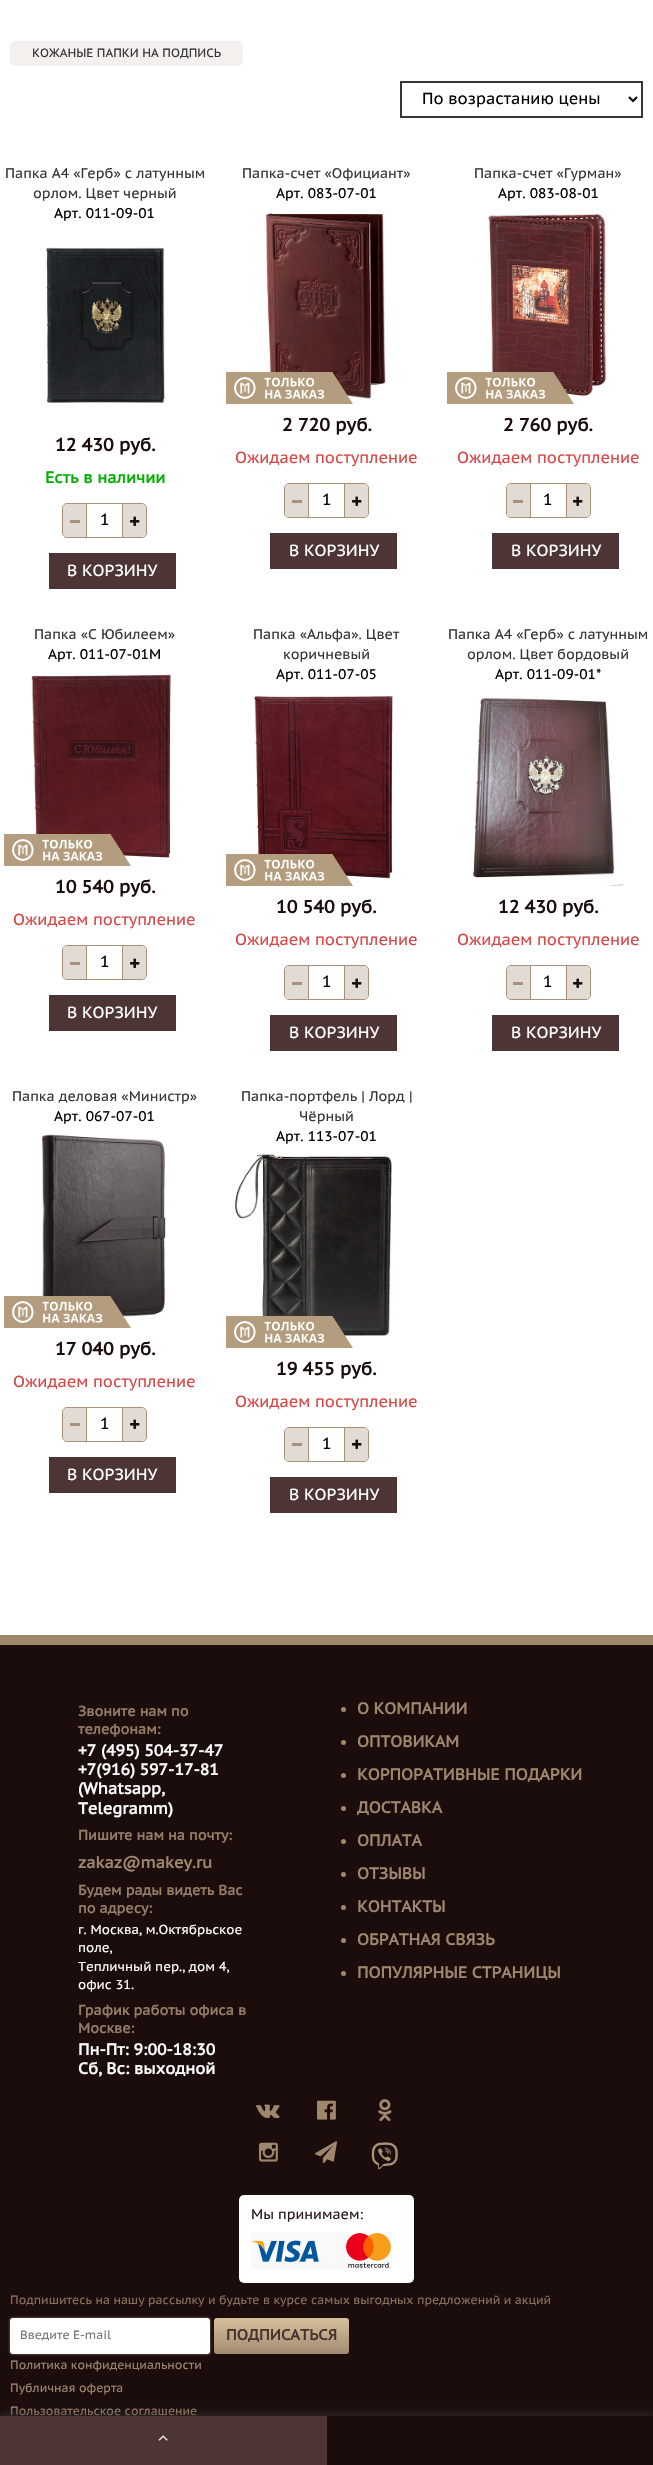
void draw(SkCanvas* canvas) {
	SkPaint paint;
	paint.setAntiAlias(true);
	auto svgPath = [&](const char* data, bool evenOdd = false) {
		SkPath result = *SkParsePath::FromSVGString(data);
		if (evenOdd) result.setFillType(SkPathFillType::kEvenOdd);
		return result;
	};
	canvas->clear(0xffffffff);
	paint.setColor(0xfff3f0ed);
	canvas->drawRoundRect(SkRect::MakeXYWH(10, 41, 233, 25), 5, 5, paint);
	SkFont f1(fontMgr->matchFamilyStyle("PT Sans Caption", SkFontStyle::Normal()), 12);
	f1.setSubpixel(true);
	paint.setColor(0xff363636);
	canvas->drawString("КОЖАНЫЕ ПАПКИ НА ПОДПИСЬ", 32, 57, f1, paint);
	paint.setStroke(true);
	paint.setStrokeWidth(2);
	canvas->drawRect(SkRect::MakeXYWH(401, 82, 241, 35), paint);
	paint.setColor(0xff000000);
	canvas->drawPath(svgPath("M629 97L633 101L637 97"), paint);
	SkFont f2(fontMgr->matchFamilyStyle("PT Sans Caption", SkFontStyle::Normal()), 16);
	f2.setSubpixel(true);
	paint.setStroke(false);
	canvas->drawString("По возрастанию цены", 422, 104, f2, paint);
	SkFont f3(fontMgr->matchFamilyStyle("PT Sans Caption", SkFontStyle::Normal()), 14);
	f3.setSubpixel(true);
	paint.setColor(0xff363636);
	canvas->drawString("Папка А4 «Герб» с латунным", 5, 178, f3, paint);
	canvas->drawString("орлом. Цвет черный", 33, 198, f3, paint);
	paint.setColor(0xff000000);
	canvas->drawString("Арт. 011-09-01", 54, 218, f3, paint);
	canvas->drawImageRect(SkImages::DeferredFromEncodedData(SkData::MakeFromFileName("img1.png")), SkRect::MakeXYWH(46, 247, 119, 156), SkSamplingOptions());
	SkFont f4(fontMgr->matchFamilyStyle("PT Sans Caption", SkFontStyle::Bold()), 18);
	f4.setSubpixel(true);
	paint.setColor(0xff1b0d0b);
	canvas->drawString("12 430 руб.", 55, 451, f4, paint);
	SkFont f5(fontMgr->matchFamilyStyle("PT Sans Caption", SkFontStyle::Bold()), 16);
	f5.setSubpixel(true);
	paint.setColor(0xff05b005);
	canvas->drawString("Есть в наличии", 45, 483, f5, paint);
	paint.setStroke(true);
	paint.setStrokeWidth(1);
	paint.setColor(0xffa69078);
	canvas->drawRoundRect(SkRect::MakeXYWH(62.5, 503.5, 84, 34), 4.5, 4.5, paint);
	paint.setStroke(false);
	paint.setColor(0xffe2dbd3);
	canvas->drawPath(svgPath("M67 504H87V537H67C65 537 63 535 63 533V508C63 506 65 504 67 504Z"), paint);
	paint.setColor(0xffa69078);
	canvas->drawRect(SkRect::MakeXYWH(86, 504, 1, 33), paint);
	paint.setColor(0xffa7927a);
	canvas->drawRect(SkRect::MakeXYWH(70, 520, 10, 3), paint);
	paint.setColor(0xff000000);
	canvas->drawString("1", 100, 525, f2, paint);
	paint.setColor(0xffe2dbd3);
	canvas->drawPath(svgPath("M122 504H142C144 504 146 506 146 508V533C146 535 144 537 142 537H122Z"), paint);
	paint.setColor(0xffa69078);
	canvas->drawRect(SkRect::MakeXYWH(122, 504, 1, 33), paint);
	canvas->drawImageRect(SkImages::DeferredFromEncodedData(SkData::MakeFromFileName("img2.png")), SkRect::MakeXYWH(130, 516, 10, 10), SkSamplingOptions());
	paint.setColor(0xff4d3535);
	canvas->drawRect(SkRect::MakeXYWH(49, 553, 127, 36), paint);
	paint.setColor(0xffffffff);
	canvas->drawString("В КОРЗИНУ", 67, 576, f2, paint);
	paint.setColor(0xff363636);
	canvas->drawString("Папка-счет «Официант»", 242, 178, f3, paint);
	paint.setColor(0xff000000);
	canvas->drawString("Арт. 083-07-01", 276, 198, f3, paint);
	canvas->drawImageRect(SkImages::DeferredFromEncodedData(SkData::MakeFromFileName("img3.png")), SkRect::MakeXYWH(265, 212, 121, 187), SkSamplingOptions());
	canvas->drawImageRect(SkImages::DeferredFromEncodedData(SkData::MakeFromFileName("img4.png")), SkRect::MakeXYWH(226, 372, 127, 32), SkSamplingOptions());
	paint.setColor(0xff1b0d0b);
	canvas->drawString("2 720 руб.", 282, 431, f4, paint);
	paint.setColor(0xffd94545);
	canvas->drawString("Ожидаем поступление", 235, 463, f2, paint);
	paint.setStroke(true);
	paint.setColor(0xffa69078);
	canvas->drawRoundRect(SkRect::MakeXYWH(284.5, 483.5, 84, 34), 4.5, 4.5, paint);
	paint.setStroke(false);
	paint.setColor(0xffe2dbd3);
	canvas->drawPath(svgPath("M289 484H309V517H289C287 517 285 515 285 513V488C285 486 287 484 289 484Z"), paint);
	paint.setColor(0xffa69078);
	canvas->drawRect(SkRect::MakeXYWH(308, 484, 1, 33), paint);
	paint.setColor(0xffa7927a);
	canvas->drawRect(SkRect::MakeXYWH(292, 500, 10, 3), paint);
	paint.setColor(0xff000000);
	canvas->drawString("1", 322, 505, f2, paint);
	paint.setColor(0xffe2dbd3);
	canvas->drawPath(svgPath("M344 484H364C366 484 368 486 368 488V513C368 515 366 517 364 517H344Z"), paint);
	paint.setColor(0xffa69078);
	canvas->drawRect(SkRect::MakeXYWH(344, 484, 1, 33), paint);
	canvas->drawImageRect(SkImages::DeferredFromEncodedData(SkData::MakeFromFileName("img2.png")), SkRect::MakeXYWH(352, 496, 10, 10), SkSamplingOptions());
	paint.setColor(0xff4d3535);
	canvas->drawRect(SkRect::MakeXYWH(270, 533, 127, 36), paint);
	paint.setColor(0xffffffff);
	canvas->drawString("В КОРЗИНУ", 289, 556, f2, paint);
	paint.setColor(0xff363636);
	canvas->drawString("Папка-счет «Гурман»", 474, 178, f3, paint);
	paint.setColor(0xff000000);
	canvas->drawString("Арт. 083-08-01", 498, 198, f3, paint);
	canvas->drawImageRect(SkImages::DeferredFromEncodedData(SkData::MakeFromFileName("img5.png")), SkRect::MakeXYWH(488, 212, 119, 185), SkSamplingOptions());
	canvas->drawImageRect(SkImages::DeferredFromEncodedData(SkData::MakeFromFileName("img6.png")), SkRect::MakeXYWH(447, 372, 127, 32), SkSamplingOptions());
	paint.setColor(0xff1b0d0b);
	canvas->drawString("2 760 руб.", 503, 431, f4, paint);
	paint.setColor(0xffd94545);
	canvas->drawString("Ожидаем поступление", 457, 463, f2, paint);
	paint.setStroke(true);
	paint.setColor(0xffa69078);
	canvas->drawRoundRect(SkRect::MakeXYWH(506.5, 483.5, 84, 34), 4.5, 4.5, paint);
	paint.setStroke(false);
	paint.setColor(0xffe2dbd3);
	canvas->drawPath(svgPath("M511 484H531V517H511C509 517 507 515 507 513V488C507 486 509 484 511 484Z"), paint);
	paint.setColor(0xffa69078);
	canvas->drawRect(SkRect::MakeXYWH(530, 484, 1, 33), paint);
	paint.setColor(0xffa7927a);
	canvas->drawRect(SkRect::MakeXYWH(513, 500, 10, 3), paint);
	paint.setColor(0xff000000);
	canvas->drawString("1", 543, 505, f2, paint);
	paint.setColor(0xffe2dbd3);
	canvas->drawPath(svgPath("M566 484H586C588 484 590 486 590 488V513C590 515 588 517 586 517H566Z"), paint);
	paint.setColor(0xffa69078);
	canvas->drawRect(SkRect::MakeXYWH(566, 484, 1, 33), paint);
	canvas->drawImageRect(SkImages::DeferredFromEncodedData(SkData::MakeFromFileName("img2.png")), SkRect::MakeXYWH(573, 496, 10, 10), SkSamplingOptions());
	paint.setColor(0xff4d3535);
	canvas->drawRect(SkRect::MakeXYWH(492, 533, 127, 36), paint);
	paint.setColor(0xffffffff);
	canvas->drawString("В КОРЗИНУ", 511, 556, f2, paint);
	paint.setColor(0xff363636);
	canvas->drawString("Папка «С Юбилеем»", 34, 639, f3, paint);
	paint.setColor(0xff000000);
	canvas->drawString("Арт. 011-07-01М", 48, 659, f3, paint);
	canvas->drawImageRect(SkImages::DeferredFromEncodedData(SkData::MakeFromFileName("img7.png")), SkRect::MakeXYWH(31, 674, 140, 184), SkSamplingOptions());
	canvas->drawImageRect(SkImages::DeferredFromEncodedData(SkData::MakeFromFileName("img8.png")), SkRect::MakeXYWH(4, 834, 127, 32), SkSamplingOptions());
	paint.setColor(0xff1b0d0b);
	canvas->drawString("10 540 руб.", 55, 893, f4, paint);
	paint.setColor(0xffd94545);
	canvas->drawString("Ожидаем поступление", 13, 925, f2, paint);
	paint.setStroke(true);
	paint.setColor(0xffa69078);
	canvas->drawRoundRect(SkRect::MakeXYWH(62.5, 945.5, 84, 34), 4.5, 4.5, paint);
	paint.setStroke(false);
	paint.setColor(0xffe2dbd3);
	canvas->drawPath(svgPath("M67 946H87V979H67C65 979 63 977 63 975V950C63 948 65 946 67 946Z"), paint);
	paint.setColor(0xffa69078);
	canvas->drawRect(SkRect::MakeXYWH(86, 946, 1, 33), paint);
	paint.setColor(0xffa7927a);
	canvas->drawRect(SkRect::MakeXYWH(70, 962, 10, 3), paint);
	paint.setColor(0xff000000);
	canvas->drawString("1", 100, 967, f2, paint);
	paint.setColor(0xffe2dbd3);
	canvas->drawPath(svgPath("M122 946H142C144 946 146 948 146 950V975C146 977 144 979 142 979H122Z"), paint);
	paint.setColor(0xffa69078);
	canvas->drawRect(SkRect::MakeXYWH(122, 946, 1, 33), paint);
	canvas->drawImageRect(SkImages::DeferredFromEncodedData(SkData::MakeFromFileName("img2.png")), SkRect::MakeXYWH(130, 958, 10, 10), SkSamplingOptions());
	paint.setColor(0xff4d3535);
	canvas->drawRect(SkRect::MakeXYWH(49, 995, 127, 36), paint);
	paint.setColor(0xffffffff);
	canvas->drawString("В КОРЗИНУ", 67, 1018, f2, paint);
	paint.setColor(0xff363636);
	canvas->drawString("Папка «Альфа». Цвет", 253, 639, f3, paint);
	canvas->drawString("коричневый", 283, 659, f3, paint);
	paint.setColor(0xff000000);
	canvas->drawString("Арт. 011-07-05", 276, 679, f3, paint);
	canvas->drawImageRect(SkImages::DeferredFromEncodedData(SkData::MakeFromFileName("img9.png")), SkRect::MakeXYWH(253, 695, 140, 184), SkSamplingOptions());
	canvas->drawImageRect(SkImages::DeferredFromEncodedData(SkData::MakeFromFileName("img10.png")), SkRect::MakeXYWH(226, 854, 127, 32), SkSamplingOptions());
	paint.setColor(0xff1b0d0b);
	canvas->drawString("10 540 руб.", 276, 913, f4, paint);
	paint.setColor(0xffd94545);
	canvas->drawString("Ожидаем поступление", 235, 945, f2, paint);
	paint.setStroke(true);
	paint.setColor(0xffa69078);
	canvas->drawRoundRect(SkRect::MakeXYWH(284.5, 965.5, 84, 34), 4.5, 4.5, paint);
	paint.setStroke(false);
	paint.setColor(0xffe2dbd3);
	canvas->drawPath(svgPath("M289 966H309V999H289C287 999 285 997 285 995V970C285 968 287 966 289 966Z"), paint);
	paint.setColor(0xffa69078);
	canvas->drawRect(SkRect::MakeXYWH(308, 966, 1, 33), paint);
	paint.setColor(0xffa7927a);
	canvas->drawRect(SkRect::MakeXYWH(292, 982, 10, 3), paint);
	paint.setColor(0xff000000);
	canvas->drawString("1", 322, 987, f2, paint);
	paint.setColor(0xffe2dbd3);
	canvas->drawPath(svgPath("M344 966H364C366 966 368 968 368 970V995C368 997 366 999 364 999H344Z"), paint);
	paint.setColor(0xffa69078);
	canvas->drawRect(SkRect::MakeXYWH(344, 966, 1, 33), paint);
	canvas->drawImageRect(SkImages::DeferredFromEncodedData(SkData::MakeFromFileName("img2.png")), SkRect::MakeXYWH(352, 978, 10, 10), SkSamplingOptions());
	paint.setColor(0xff4d3535);
	canvas->drawRect(SkRect::MakeXYWH(270, 1015, 127, 36), paint);
	paint.setColor(0xffffffff);
	canvas->drawString("В КОРЗИНУ", 289, 1038, f2, paint);
	paint.setColor(0xff363636);
	canvas->drawString("Папка А4 «Герб» с латунным", 448, 639, f3, paint);
	canvas->drawString("орлом. Цвет бордовый", 467, 659, f3, paint);
	paint.setColor(0xff000000);
	canvas->drawString("Арт. 011-09-01*", 495, 679, f3, paint);
	canvas->drawImageRect(SkImages::DeferredFromEncodedData(SkData::MakeFromFileName("img11.png")), SkRect::MakeXYWH(473, 698, 151, 188), SkSamplingOptions());
	paint.setColor(0xff1b0d0b);
	canvas->drawString("12 430 руб.", 498, 913, f4, paint);
	paint.setColor(0xffd94545);
	canvas->drawString("Ожидаем поступление", 457, 945, f2, paint);
	paint.setStroke(true);
	paint.setColor(0xffa69078);
	canvas->drawRoundRect(SkRect::MakeXYWH(506.5, 965.5, 84, 34), 4.5, 4.5, paint);
	paint.setStroke(false);
	paint.setColor(0xffe2dbd3);
	canvas->drawPath(svgPath("M511 966H531V999H511C509 999 507 997 507 995V970C507 968 509 966 511 966Z"), paint);
	paint.setColor(0xffa69078);
	canvas->drawRect(SkRect::MakeXYWH(530, 966, 1, 33), paint);
	paint.setColor(0xffa7927a);
	canvas->drawRect(SkRect::MakeXYWH(513, 982, 10, 3), paint);
	paint.setColor(0xff000000);
	canvas->drawString("1", 543, 987, f2, paint);
	paint.setColor(0xffe2dbd3);
	canvas->drawPath(svgPath("M566 966H586C588 966 590 968 590 970V995C590 997 588 999 586 999H566Z"), paint);
	paint.setColor(0xffa69078);
	canvas->drawRect(SkRect::MakeXYWH(566, 966, 1, 33), paint);
	canvas->drawImageRect(SkImages::DeferredFromEncodedData(SkData::MakeFromFileName("img2.png")), SkRect::MakeXYWH(573, 978, 10, 10), SkSamplingOptions());
	paint.setColor(0xff4d3535);
	canvas->drawRect(SkRect::MakeXYWH(492, 1015, 127, 36), paint);
	paint.setColor(0xffffffff);
	canvas->drawString("В КОРЗИНУ", 511, 1038, f2, paint);
	paint.setColor(0xff363636);
	canvas->drawString("Папка деловая «Министр»", 12, 1101, f3, paint);
	paint.setColor(0xff000000);
	canvas->drawString("Арт. 067-07-01", 54, 1121, f3, paint);
	canvas->drawImageRect(SkImages::DeferredFromEncodedData(SkData::MakeFromFileName("img12.png")), SkRect::MakeXYWH(41, 1134, 125, 188), SkSamplingOptions());
	canvas->drawImageRect(SkImages::DeferredFromEncodedData(SkData::MakeFromFileName("img13.png")), SkRect::MakeXYWH(4, 1296, 127, 32), SkSamplingOptions());
	paint.setColor(0xff1b0d0b);
	canvas->drawString("17 040 руб.", 55, 1355, f4, paint);
	paint.setColor(0xffd94545);
	canvas->drawString("Ожидаем поступление", 13, 1387, f2, paint);
	paint.setStroke(true);
	paint.setColor(0xffa69078);
	canvas->drawRoundRect(SkRect::MakeXYWH(62.5, 1407.5, 84, 34), 4.5, 4.5, paint);
	paint.setStroke(false);
	paint.setColor(0xffe2dbd3);
	canvas->drawPath(svgPath("M67 1408H87V1441H67C65 1441 63 1439 63 1437V1412C63 1410 65 1408 67 1408Z"), paint);
	paint.setColor(0xffa69078);
	canvas->drawRect(SkRect::MakeXYWH(86, 1408, 1, 33), paint);
	paint.setColor(0xffa7927a);
	canvas->drawRect(SkRect::MakeXYWH(70, 1423, 10, 3), paint);
	paint.setColor(0xff000000);
	canvas->drawString("1", 100, 1429, f2, paint);
	paint.setColor(0xffe2dbd3);
	canvas->drawPath(svgPath("M122 1408H142C144 1408 146 1410 146 1412V1437C146 1439 144 1441 142 1441H122Z"), paint);
	paint.setColor(0xffa69078);
	canvas->drawRect(SkRect::MakeXYWH(122, 1408, 1, 33), paint);
	canvas->drawImageRect(SkImages::DeferredFromEncodedData(SkData::MakeFromFileName("img2.png")), SkRect::MakeXYWH(130, 1419, 10, 10), SkSamplingOptions());
	paint.setColor(0xff4d3535);
	canvas->drawRect(SkRect::MakeXYWH(49, 1457, 127, 36), paint);
	paint.setColor(0xffffffff);
	canvas->drawString("В КОРЗИНУ", 67, 1480, f2, paint);
	paint.setColor(0xff363636);
	canvas->drawString("Папка-портфель | Лорд |", 241, 1101, f3, paint);
	canvas->drawString("Чёрный", 299, 1121, f3, paint);
	paint.setColor(0xff000000);
	canvas->drawString("Арт. 113-07-01", 276, 1141, f3, paint);
	canvas->drawImageRect(SkImages::DeferredFromEncodedData(SkData::MakeFromFileName("img14.png")), SkRect::MakeXYWH(235, 1154, 157, 183), SkSamplingOptions());
	canvas->drawImageRect(SkImages::DeferredFromEncodedData(SkData::MakeFromFileName("img15.png")), SkRect::MakeXYWH(226, 1316, 127, 32), SkSamplingOptions());
	paint.setColor(0xff1b0d0b);
	canvas->drawString("19 455 руб.", 276, 1375, f4, paint);
	paint.setColor(0xffd94545);
	canvas->drawString("Ожидаем поступление", 235, 1407, f2, paint);
	paint.setStroke(true);
	paint.setColor(0xffa69078);
	canvas->drawRoundRect(SkRect::MakeXYWH(284.5, 1427.5, 84, 34), 4.5, 4.5, paint);
	paint.setStroke(false);
	paint.setColor(0xffe2dbd3);
	canvas->drawPath(svgPath("M289 1428H309V1461H289C287 1461 285 1459 285 1457V1432C285 1430 287 1428 289 1428Z"), paint);
	paint.setColor(0xffa69078);
	canvas->drawRect(SkRect::MakeXYWH(308, 1428, 1, 33), paint);
	paint.setColor(0xffa7927a);
	canvas->drawRect(SkRect::MakeXYWH(292, 1443, 10, 3), paint);
	paint.setColor(0xff000000);
	canvas->drawString("1", 322, 1449, f2, paint);
	paint.setColor(0xffe2dbd3);
	canvas->drawPath(svgPath("M344 1428H364C366 1428 368 1430 368 1432V1457C368 1459 366 1461 364 1461H344Z"), paint);
	paint.setColor(0xffa69078);
	canvas->drawRect(SkRect::MakeXYWH(344, 1428, 1, 33), paint);
	canvas->drawImageRect(SkImages::DeferredFromEncodedData(SkData::MakeFromFileName("img2.png")), SkRect::MakeXYWH(352, 1439, 10, 10), SkSamplingOptions());
	paint.setColor(0xff4d3535);
	canvas->drawRect(SkRect::MakeXYWH(270, 1477, 127, 36), paint);
	paint.setColor(0xffffffff);
	canvas->drawString("В КОРЗИНУ", 289, 1500, f2, paint);
	paint.setColor(0xff1b0d0b);
	canvas->drawRect(SkRect::MakeXYWH(0, 1645, 653, 771), paint);
	paint.setColor(0xff9f876d);
	canvas->drawRect(SkRect::MakeXYWH(0, 1635, 653, 10), paint);
	SkFont f6(fontMgr->matchFamilyStyle("PT Sans Caption", SkFontStyle::Bold()), 14);
	f6.setSubpixel(true);
	paint.setColor(0xff957d65);
	canvas->drawString("Звоните нам по", 78, 1716, f6, paint);
	canvas->drawString("телефонам:", 78, 1734, f6, paint);
	paint.setColor(0xffffffff);
	canvas->drawString("+7 (495) 504-37-47", 78, 1756, f5, paint);
	canvas->drawString("+7(916) 597-17-81", 78, 1775, f5, paint);
	canvas->drawString("(Whatsapp,", 78, 1794, f5, paint);
	canvas->drawString("Telegramm)", 78, 1814, f5, paint);
	paint.setColor(0xff957d65);
	canvas->drawString("Пишите нам на почту:", 78, 1840, f6, paint);
	paint.setColor(0xff9f876d);
	canvas->drawString("zakaz@makey.ru", 78, 1868, f5, paint);
	paint.setColor(0xff957d65);
	canvas->drawString("Будем рады видеть Вас", 78, 1895, f6, paint);
	canvas->drawString("по адресу:", 78, 1913, f6, paint);
	SkFont f7(fontMgr->matchFamilyStyle("PT Sans Caption", SkFontStyle::Normal()), 13);
	f7.setSubpixel(true);
	paint.setColor(0xffffffff);
	canvas->drawString("г. Москва, м.Октябрьское", 78, 1934, f7, paint);
	canvas->drawString("поле,", 78, 1952, f7, paint);
	canvas->drawString("Тепличный пер., дом 4,", 78, 1971, f7, paint);
	canvas->drawString("офис 31.", 78, 1989, f7, paint);
	paint.setColor(0xff957d65);
	canvas->drawString("График работы офиса в", 78, 2015, f6, paint);
	canvas->drawString("Москве:", 78, 2033, f6, paint);
	paint.setColor(0xffffffff);
	canvas->drawString("Пн-Пт: 9:00-18:30", 78, 2055, f5, paint);
	canvas->drawString("Сб, Вс: выходной", 78, 2074, f5, paint);
	paint.setColor(0xff9f876d);
	canvas->drawCircle(343.5, 1709.5, 2.5, paint);
	canvas->drawString("О КОМПАНИИ", 357, 1714, f5, paint);
	canvas->drawCircle(343.5, 1742.5, 2.5, paint);
	canvas->drawString("ОПТОВИКАМ", 357, 1747, f5, paint);
	canvas->drawCircle(343.5, 1775.5, 2.5, paint);
	canvas->drawString("КОРПОРАТИВНЫЕ ПОДАРКИ", 357, 1780, f5, paint);
	canvas->drawCircle(343.5, 1808.5, 2.5, paint);
	canvas->drawString("ДОСТАВКА", 357, 1813, f5, paint);
	canvas->drawCircle(343.5, 1841.5, 2.5, paint);
	canvas->drawString("ОПЛАТА", 357, 1846, f5, paint);
	canvas->drawCircle(343.5, 1874.5, 2.5, paint);
	canvas->drawString("ОТЗЫВЫ", 357, 1879, f5, paint);
	canvas->drawCircle(343.5, 1907.5, 2.5, paint);
	canvas->drawString("КОНТАКТЫ", 357, 1912, f5, paint);
	canvas->drawCircle(343.5, 1940.5, 2.5, paint);
	canvas->drawString("ОБРАТНАЯ СВЯЗЬ", 357, 1945, f5, paint);
	canvas->drawCircle(343.5, 1973.5, 2.5, paint);
	canvas->drawString("ПОПУЛЯРНЫЕ СТРАНИЦЫ", 357, 1978, f5, paint);
	canvas->drawImageRect(SkImages::DeferredFromEncodedData(SkData::MakeFromFileName("img16.png")), SkRect::MakeXYWH(256, 2104, 24, 14), SkSamplingOptions());
	canvas->drawImageRect(SkImages::DeferredFromEncodedData(SkData::MakeFromFileName("img17.png")), SkRect::MakeXYWH(317, 2100, 19, 20), SkSamplingOptions());
	canvas->drawImageRect(SkImages::DeferredFromEncodedData(SkData::MakeFromFileName("img18.png")), SkRect::MakeXYWH(378, 2099, 14, 23), SkSamplingOptions());
	canvas->drawImageRect(SkImages::DeferredFromEncodedData(SkData::MakeFromFileName("img19.png")), SkRect::MakeXYWH(259, 2142, 19, 20), SkSamplingOptions());
	canvas->drawImageRect(SkImages::DeferredFromEncodedData(SkData::MakeFromFileName("img20.png")), SkRect::MakeXYWH(315, 2141, 22, 23), SkSamplingOptions());
	canvas->drawImageRect(SkImages::DeferredFromEncodedData(SkData::MakeFromFileName("img21.png")), SkRect::MakeXYWH(371, 2142, 27, 28), SkSamplingOptions());
	paint.setColor(0xffffffff);
	canvas->drawRoundRect(SkRect::MakeXYWH(239, 2195, 175, 88), 5, 5, paint);
	paint.setColor(0xff271917);
	canvas->drawString("Мы принимаем:", 251, 2219, f3, paint);
	canvas->drawImageRect(SkImages::DeferredFromEncodedData(SkData::MakeFromFileName("img22.png")), SkRect::MakeXYWH(251, 2232, 141, 37), SkSamplingOptions());
	paint.setColor(0xff87715b);
	canvas->drawString("Подпишитесь на нашу рассылку и будьте в курсе самых выгодных предложений и акций", 10, 2304, f1, paint);
	paint.setMaskFilter(SkMaskFilter::MakeBlur(kNormal_SkBlurStyle, 1.5));
	canvas->drawRoundRect(SkRect::MakeXYWH(10, 2318, 200, 36), 3, 3, paint);
	paint.setMaskFilter(nullptr);
	paint.setColor(0xffffffff);
	canvas->drawRoundRect(SkRect::MakeXYWH(10, 2318, 200, 36), 3, 3, paint);
	paint.setColor(0xff757575);
	canvas->drawString("Введите E-mail", 20, 2339, f1, paint);
	{
		const SkColor colors[] = {0xffd6c19e, 0xffa28a70};
		const float stops[] = {0, 1};
		const SkPoint ends[] = {{282, 2318}, {282, 2354}};
		paint.setShader(SkGradientShader::MakeLinear(ends, colors, stops, 2, SkTileMode::kClamp));
		paint.setAlpha(255);
	}
	canvas->drawRoundRect(SkRect::MakeXYWH(214, 2318, 135, 36), 3, 3, paint);
	SkFont f8(fontMgr->matchFamilyStyle("PT Sans Caption", SkFontStyle::Bold()), 15);
	f8.setSubpixel(true);
	paint.setShader(nullptr);
	paint.setColor(0xff44342b);
	canvas->drawString("ПОДПИСАТЬСЯ", 226, 2340, f8, paint);
	paint.setColor(0xff9f876d);
	canvas->drawString("Политика конфиденциальности", 10, 2369, f1, paint);
	canvas->drawString("Публичная оферта", 10, 2392, f1, paint);
	canvas->drawString("Пользовательское соглашение", 10, 2415, f1, paint);
	paint.setColor(0xff333333);
	paint.setMaskFilter(SkMaskFilter::MakeBlur(kNormal_SkBlurStyle, 5));
	canvas->drawRect(SkRect::MakeXYWH(-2, 2416, 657, 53), paint);
	paint.setMaskFilter(nullptr);
	paint.setColor(0xff1b0d0b);
	canvas->drawRect(SkRect::MakeXYWH(327, 2416, 326, 49), paint);
	paint.setColor(0xff4d3535);
	canvas->drawRect(SkRect::MakeXYWH(0, 2416, 327, 49), paint);
	canvas->drawImageRect(SkImages::DeferredFromEncodedData(SkData::MakeFromFileName("img23.png")), SkRect::MakeXYWH(158, 2435, 10, 6), SkSamplingOptions());
}
